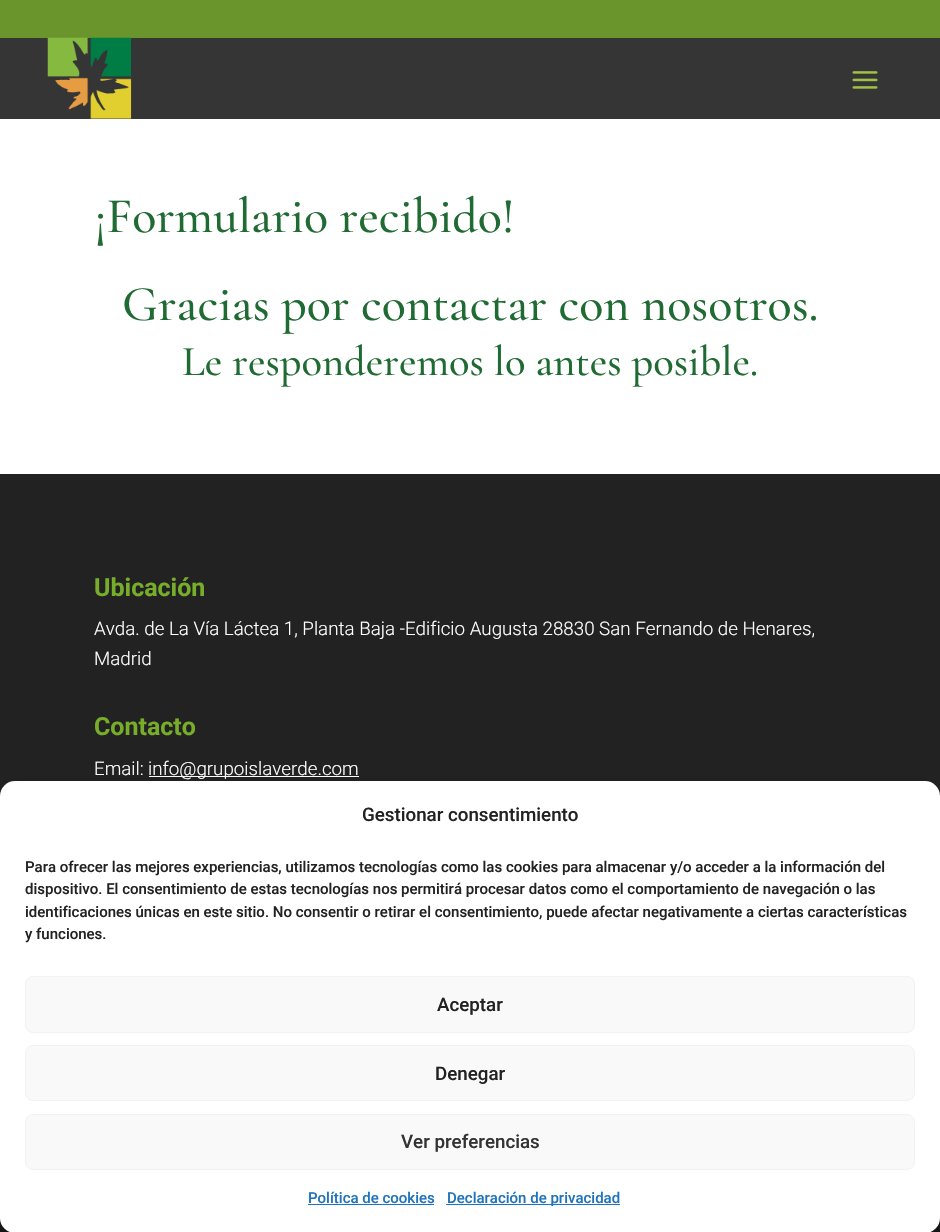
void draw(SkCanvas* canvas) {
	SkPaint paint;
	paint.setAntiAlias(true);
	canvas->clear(0xffffffff);
	paint.setColor(0xff353535);
	canvas->drawRect(SkRect::MakeXYWH(0, 38, 940, 81), paint);
	paint.setColor(0xff6a952c);
	canvas->drawRect(SkRect::MakeXYWH(0, 0, 940, 38), paint);
	canvas->drawImageRect(SkImages::DeferredFromEncodedData(SkData::MakeFromFileName("img1.png")), SkRect::MakeXYWH(47, 37, 85, 82), SkSamplingOptions());
	canvas->drawImageRect(SkImages::DeferredFromEncodedData(SkData::MakeFromFileName("img2.png")), SkRect::MakeXYWH(852, 71, 26, 18), SkSamplingOptions());
	SkFont f1(fontMgr->matchFamilyStyle("Cormorant Garamond", SkFontStyle(500, SkFontStyle::kNormal_Width, SkFontStyle::kUpright_Slant)), 50);
	f1.setSubpixel(true);
	paint.setColor(0xff1f6b33);
	canvas->drawString("¡Formulario recibido!", 94, 232, f1, paint);
	canvas->drawString("Gracias por contactar con nosotros.", 122, 320, f1, paint);
	SkFont f2(fontMgr->matchFamilyStyle("Cormorant Garamond", SkFontStyle(500, SkFontStyle::kNormal_Width, SkFontStyle::kUpright_Slant)), 42.5);
	f2.setSubpixel(true);
	canvas->drawString("Le responderemos lo antes posible.", 182, 375, f2, paint);
	paint.setColor(0xff222222);
	canvas->drawRect(SkRect::MakeXYWH(0, 474, 940, 322), paint);
	SkFont f3(fontMgr->matchFamilyStyle("Roboto", SkFontStyle::Bold()), 25);
	f3.setSubpixel(true);
	paint.setColor(0xff77ad2a);
	canvas->drawString("Ubicación", 94, 596, f3, paint);
	SkFont f4(fontMgr->matchFamilyStyle("Roboto", SkFontStyle(300, SkFontStyle::kNormal_Width, SkFontStyle::kUpright_Slant)), 18.75);
	f4.setSubpixel(true);
	paint.setColor(0xffffffff);
	canvas->drawString("Avda. de La Vía Láctea 1, Planta Baja -Edificio Augusta 28830 San Fernando de Henares,", 94, 635, f4, paint);
	canvas->drawString("Madrid", 94, 665, f4, paint);
	paint.setColor(0xff77ad2a);
	canvas->drawString("Contacto", 94, 735, f3, paint);
	paint.setColor(0xffffffff);
	canvas->drawString("Email:", 94, 775, f4, paint);
	canvas->drawRect(SkRect::MakeXYWH(149, 776, 210, 1), paint);
	canvas->drawString("info@grupoislaverde.com", 148, 775, f4, paint);
	paint.setColor(0xff1b1b1b);
	canvas->drawRect(SkRect::MakeXYWH(0, 1218, 940, 14), paint);
	paint.setColor(0x3b000000);
	paint.setMaskFilter(SkMaskFilter::MakeBlur(kNormal_SkBlurStyle, 4));
	canvas->drawRoundRect(SkRect::MakeXYWH(0, 789, 940, 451), 15, 15, paint);
	paint.setMaskFilter(nullptr);
	paint.setColor(0x30000000);
	paint.setMaskFilter(SkMaskFilter::MakeBlur(kNormal_SkBlurStyle, 12.5));
	canvas->drawRoundRect(SkRect::MakeXYWH(0, 794, 940, 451), 15, 15, paint);
	paint.setMaskFilter(nullptr);
	paint.setColor(0xffffffff);
	canvas->drawRoundRect(SkRect::MakeXYWH(0, 781, 940, 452), 15, 15, paint);
	SkFont f5(fontMgr->matchFamilyStyle("Roboto", SkFontStyle(500, SkFontStyle::kNormal_Width, SkFontStyle::kUpright_Slant)), 18.75);
	f5.setSubpixel(true);
	paint.setColor(0xff222222);
	canvas->drawString("Gestionar consentimiento", 362, 821, f5, paint);
	SkFont f6(fontMgr->matchFamilyStyle("Roboto", SkFontStyle(500, SkFontStyle::kNormal_Width, SkFontStyle::kUpright_Slant)), 15);
	f6.setSubpixel(true);
	canvas->drawString("Para ofrecer las mejores experiencias, utilizamos tecnologías como las cookies para almacenar y/o acceder a la información del", 25, 872, f6, paint);
	canvas->drawString("dispositivo. El consentimiento de estas tecnologías nos permitirá procesar datos como el comportamiento de navegación o las", 25, 894, f6, paint);
	canvas->drawString("identificaciones únicas en este sitio. No consentir o retirar el consentimiento, puede afectar negativamente a ciertas características", 25, 917, f6, paint);
	canvas->drawString("y funciones.", 25, 939, f6, paint);
	paint.setColor(0xfff9f9f9);
	canvas->drawRoundRect(SkRect::MakeXYWH(25.5, 976.5, 889, 56), 7.5, 7.5, paint);
	paint.setStroke(true);
	paint.setStrokeWidth(1);
	paint.setColor(0xfff2f2f2);
	canvas->drawRoundRect(SkRect::MakeXYWH(25.5, 976.5, 889, 56), 7.5, 7.5, paint);
	paint.setStroke(false);
	paint.setColor(0xff222222);
	canvas->drawString("Aceptar", 437, 1011, f5, paint);
	paint.setColor(0xfff9f9f9);
	canvas->drawRoundRect(SkRect::MakeXYWH(25.5, 1045.5, 889, 55), 7.5, 7.5, paint);
	paint.setStroke(true);
	paint.setColor(0xfff2f2f2);
	canvas->drawRoundRect(SkRect::MakeXYWH(25.5, 1045.5, 889, 55), 7.5, 7.5, paint);
	paint.setStroke(false);
	paint.setColor(0xff222222);
	canvas->drawString("Denegar", 435, 1080, f5, paint);
	paint.setColor(0xfff9f9f9);
	canvas->drawRoundRect(SkRect::MakeXYWH(25.5, 1114.5, 889, 55), 7.5, 7.5, paint);
	paint.setStroke(true);
	paint.setColor(0xfff2f2f2);
	canvas->drawRoundRect(SkRect::MakeXYWH(25.5, 1114.5, 889, 55), 7.5, 7.5, paint);
	paint.setStroke(false);
	paint.setColor(0xff333333);
	canvas->drawString("Ver preferencias", 401, 1148, f5, paint);
	paint.setColor(0xff1e73be);
	canvas->drawString("Política de cookies", 308, 1203, f6, paint);
	canvas->drawRect(SkRect::MakeXYWH(308, 1204, 126, 1), paint);
	canvas->drawRect(SkRect::MakeXYWH(446, 1204, 174, 1), paint);
	canvas->drawString("Declaración de privacidad", 447, 1203, f6, paint);
}
